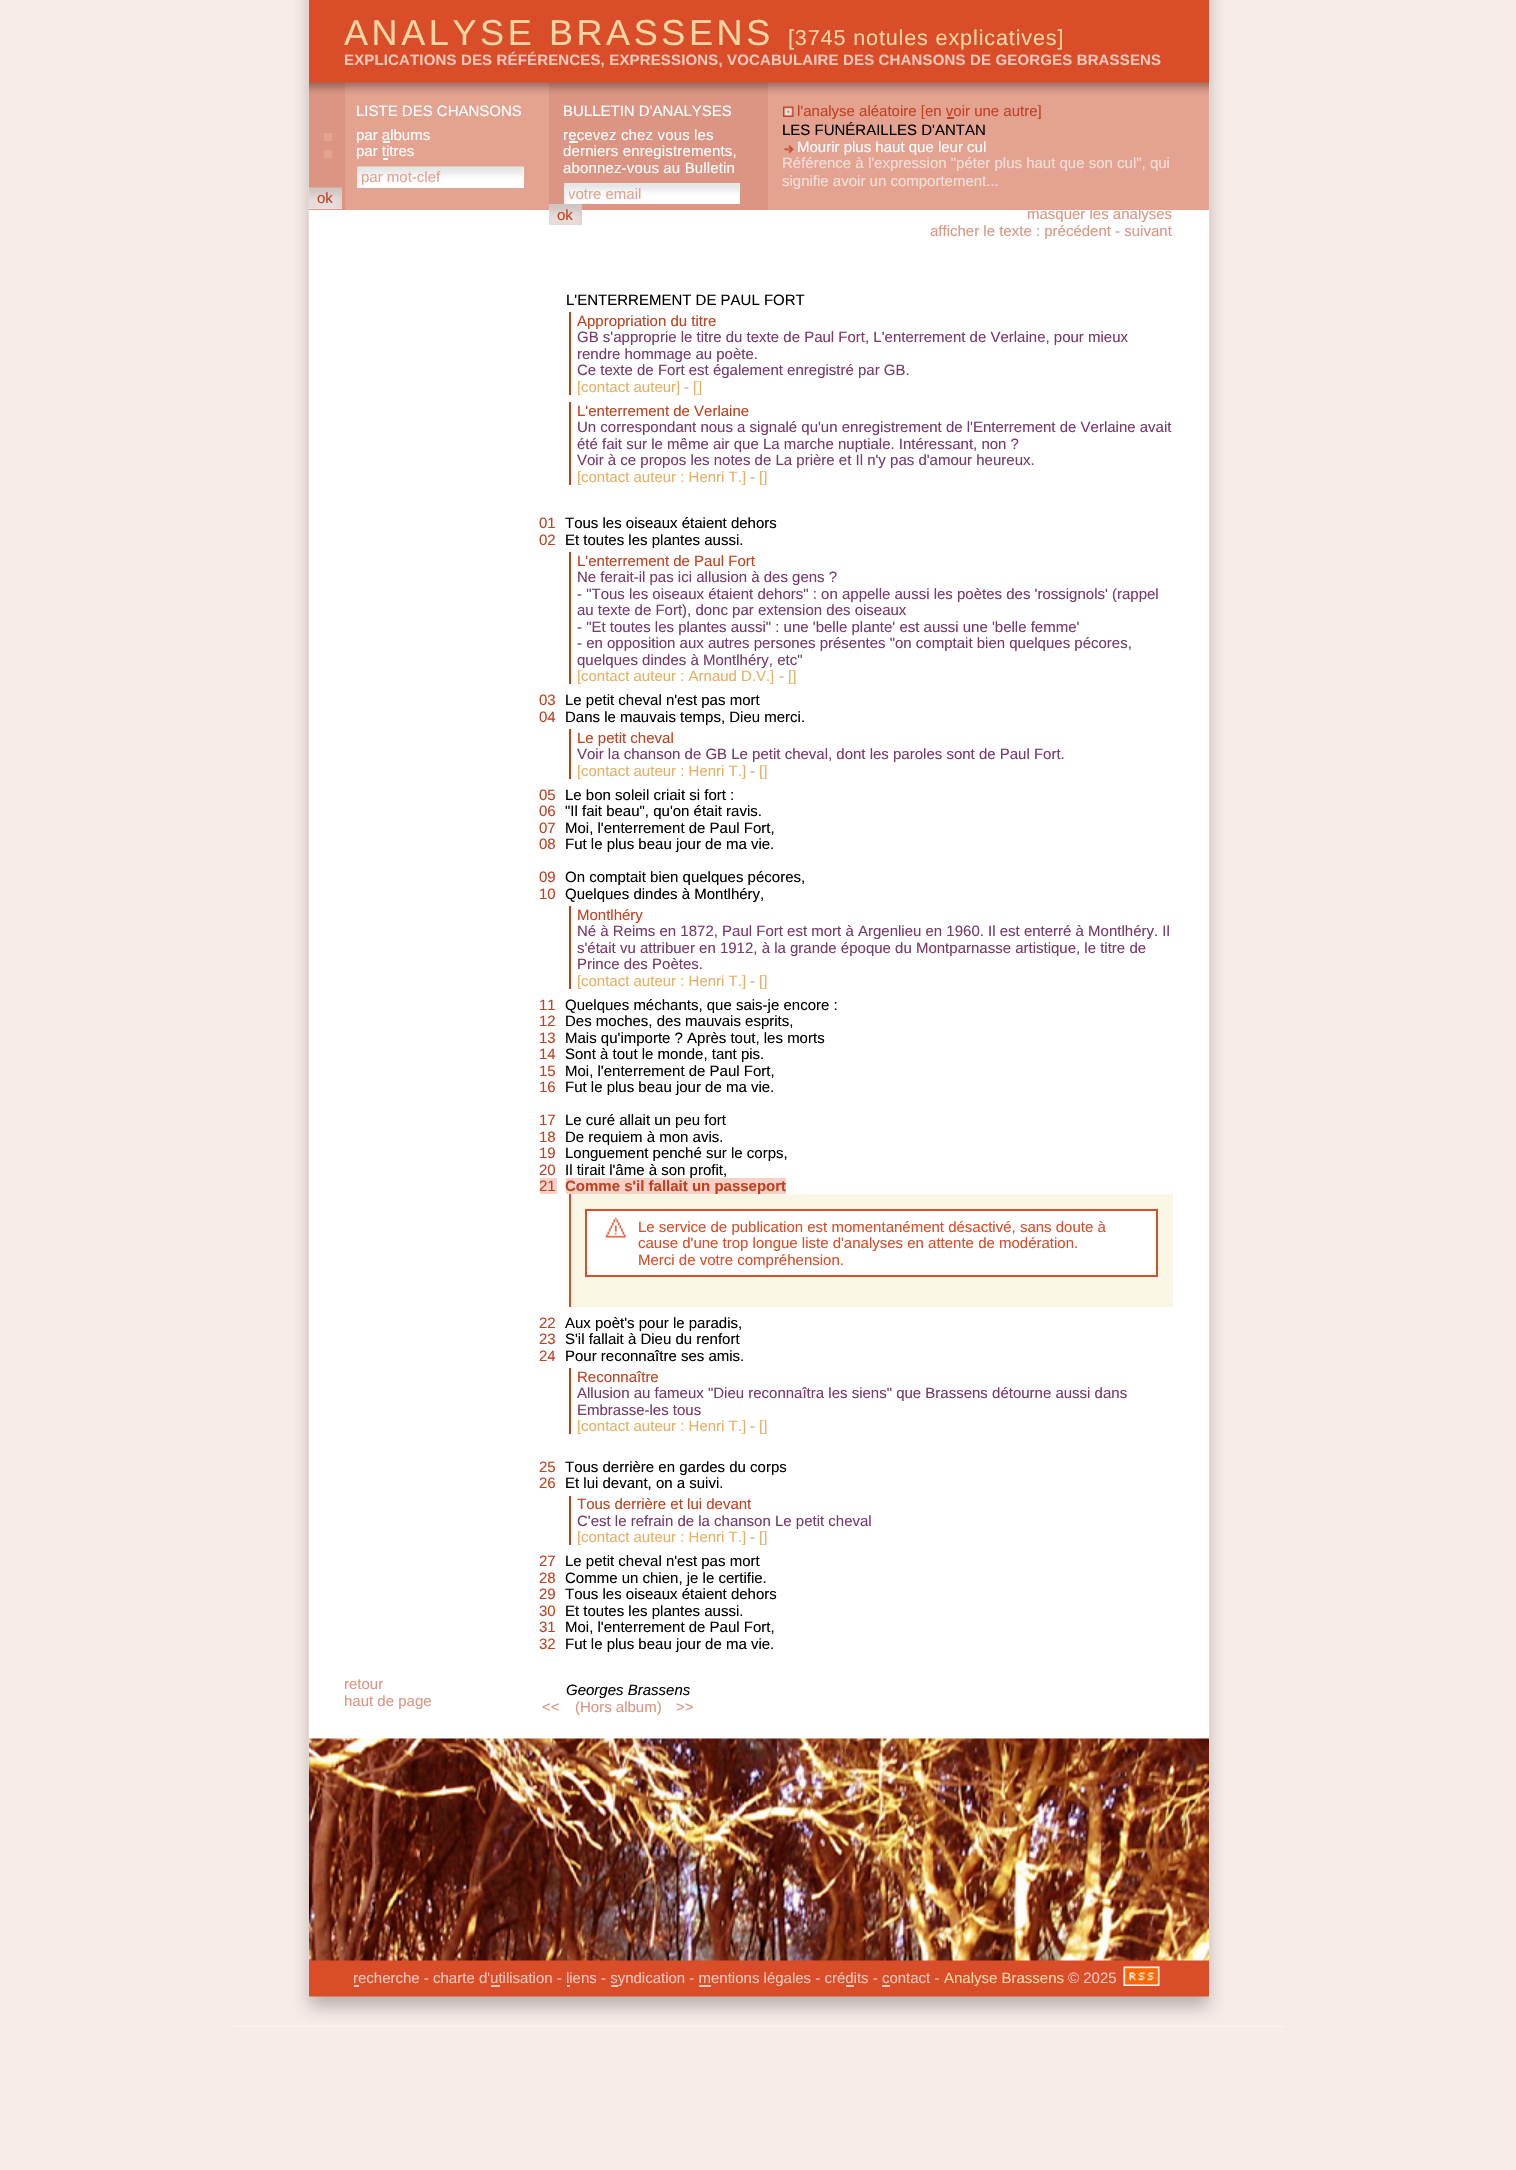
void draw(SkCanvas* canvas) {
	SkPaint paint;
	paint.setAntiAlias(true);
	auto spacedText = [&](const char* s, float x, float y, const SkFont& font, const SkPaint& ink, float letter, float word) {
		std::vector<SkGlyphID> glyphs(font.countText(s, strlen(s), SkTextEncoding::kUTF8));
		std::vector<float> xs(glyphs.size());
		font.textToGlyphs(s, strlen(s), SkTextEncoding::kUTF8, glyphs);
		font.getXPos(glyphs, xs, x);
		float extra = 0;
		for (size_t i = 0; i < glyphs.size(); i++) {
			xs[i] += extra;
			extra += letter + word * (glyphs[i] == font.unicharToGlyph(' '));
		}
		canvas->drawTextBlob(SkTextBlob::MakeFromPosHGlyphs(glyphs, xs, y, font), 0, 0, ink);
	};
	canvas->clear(0xfff8ece9);
	canvas->drawImageRect(SkImages::DeferredFromEncodedData(SkData::MakeFromFileName("img1.png")), SkRect::MakeXYWH(234, 0, 1050, 1997), SkSamplingOptions());
	paint.setColor(0xffffffff);
	canvas->drawRect(SkRect::MakeXYWH(309, 210, 900, 1529), paint);
	paint.setColor(0xffd94d28);
	canvas->drawRect(SkRect::MakeXYWH(309, 0, 900, 83), paint);
	SkFont f1(fontMgr->matchFamilyStyle("Liberation Sans", SkFontStyle::Normal()), 36);
	f1.setSubpixel(true);
	paint.setColor(0xfffad6a4);
	spacedText("ANALYSE BRASSENS", 344, 45, f1, paint, 3.6, 0);
	SkFont f2(fontMgr->matchFamilyStyle("Liberation Sans", SkFontStyle::Normal()), 21.6);
	f2.setSubpixel(true);
	spacedText("[3745 notules explicatives]", 788, 45, f2, paint, 0.85, 0);
	SkFont f3(fontMgr->matchFamilyStyle("Liberation Sans", SkFontStyle::Bold()), 15);
	f3.setSubpixel(true);
	paint.setColor(0xfff4c6ba);
	spacedText("EXPLICATIONS DES RÉFÉRENCES, EXPRESSIONS, VOCABULAIRE DES CHANSONS DE GEORGES BRASSENS", 344, 65, f3, paint, 0.15, 0);
	canvas->drawImageRect(SkImages::DeferredFromEncodedData(SkData::MakeFromFileName("img2.png")), SkRect::MakeXYWH(309, 82, 240, 128), SkSamplingOptions());
	SkFont f4(fontMgr->matchFamilyStyle("Liberation Sans", SkFontStyle::Normal()), 15);
	f4.setSubpixel(true);
	paint.setColor(0xffffffff);
	canvas->drawString("LISTE DES CHANSONS", 356, 116, f4, paint);
	canvas->drawString("par albums", 356, 140, f4, paint);
	paint.setColor(0xffe4a290);
	canvas->drawRect(SkRect::MakeXYWH(324, 133, 8, 8), paint);
	paint.setColor(0xffffffff);
	canvas->drawRect(SkRect::MakeXYWH(383, 141, 7, 2), paint);
	canvas->drawString("par titres", 356, 156, f4, paint);
	paint.setColor(0xffe4a290);
	canvas->drawRect(SkRect::MakeXYWH(324, 150, 8, 8), paint);
	paint.setColor(0xffffffff);
	canvas->drawRect(SkRect::MakeXYWH(383, 158, 5, 2), paint);
	canvas->drawRect(SkRect::MakeXYWH(357, 167, 167, 21), paint);
	canvas->drawImageRect(SkImages::DeferredFromEncodedData(SkData::MakeFromFileName("img3.png")), SkRect::MakeXYWH(357, 166, 167, 22), SkSamplingOptions());
	canvas->save();
	canvas->clipRect(SkRect::MakeXYWH(362, 170, 162, 16));
	paint.setColor(0xffe4a290);
	canvas->drawString("par mot-clef", 361, 182, f4, paint);
	canvas->restore();
	paint.setColor(0xffefefef);
	canvas->drawRect(SkRect::MakeXYWH(309, 208, 33, 1), paint);
	canvas->drawImageRect(SkImages::DeferredFromEncodedData(SkData::MakeFromFileName("img4.png")), SkRect::MakeXYWH(309, 187, 33, 22), SkSamplingOptions());
	paint.setColor(0xffc1401e);
	canvas->drawString("ok", 317, 203, f4, paint);
	canvas->drawImageRect(SkImages::DeferredFromEncodedData(SkData::MakeFromFileName("img5.png")), SkRect::MakeXYWH(549, 82, 219, 128), SkSamplingOptions());
	paint.setColor(0xffffffff);
	canvas->drawString("BULLETIN D'ANALYSES", 563, 116, f4, paint);
	spacedText("recevez chez vous les", 563, 140, f4, paint, 0.15, 0);
	canvas->drawRect(SkRect::MakeXYWH(569, 141, 9, 2), paint);
	spacedText("derniers enregistrements,", 563, 156, f4, paint, 0.15, 0);
	spacedText("abonnez-vous au Bulletin", 563, 173, f4, paint, 0.15, 0);
	canvas->drawRect(SkRect::MakeXYWH(739, 183, 1, 21), paint);
	canvas->drawImageRect(SkImages::DeferredFromEncodedData(SkData::MakeFromFileName("img6.png")), SkRect::MakeXYWH(564, 183, 176, 21), SkSamplingOptions());
	canvas->save();
	canvas->clipRect(SkRect::MakeXYWH(569, 186, 171, 17));
	paint.setColor(0xffe4a290);
	canvas->drawString("votre email", 568, 199, f4, paint);
	canvas->restore();
	canvas->drawImageRect(SkImages::DeferredFromEncodedData(SkData::MakeFromFileName("img7.png")), SkRect::MakeXYWH(549, 204, 33, 21), SkSamplingOptions());
	paint.setColor(0xffc1401e);
	canvas->drawString("ok", 557, 220, f4, paint);
	paint.setColor(0xffdb9582);
	canvas->drawString("masquer les analyses", 1027, 219, f4, paint);
	canvas->drawImageRect(SkImages::DeferredFromEncodedData(SkData::MakeFromFileName("img8.png")), SkRect::MakeXYWH(768, 82, 441, 128), SkSamplingOptions());
	canvas->drawImageRect(SkImages::DeferredFromEncodedData(SkData::MakeFromFileName("img9.png")), SkRect::MakeXYWH(783, 106, 11, 11), SkSamplingOptions());
	paint.setColor(0xffc1401e);
	canvas->drawString("l'analyse aléatoire [en voir une autre]", 797, 116, f4, paint);
	canvas->drawRect(SkRect::MakeXYWH(947, 117, 7, 2), paint);
	paint.setColor(0xff000000);
	canvas->drawString("LES FUNÉRAILLES D'ANTAN", 782, 135, f4, paint);
	canvas->drawImageRect(SkImages::DeferredFromEncodedData(SkData::MakeFromFileName("img10.png")), SkRect::MakeXYWH(784, 145, 10, 8), SkSamplingOptions());
	paint.setColor(0xffffffff);
	canvas->drawString("Mourir plus haut que leur cul", 797, 152, f4, paint);
	paint.setColor(0xfff2dfd9);
	canvas->drawString("Référence à l'expression \"péter plus haut que son cul\", qui", 782, 168, f4, paint);
	canvas->drawString("signifie avoir un comportement...", 782, 186, f4, paint);
	paint.setColor(0xffdb9582);
	canvas->drawString("afficher le texte : précédent - suivant", 930, 236, f4, paint);
	paint.setColor(0xff000000);
	canvas->drawString("L'ENTERREMENT DE PAUL FORT", 566, 305, f4, paint);
	paint.setColor(0xffc1401e);
	canvas->drawRect(SkRect::MakeXYWH(569, 312, 2, 83), paint);
	canvas->drawString("Appropriation du titre", 577, 326, f4, paint);
	paint.setColor(0xff783a6a);
	canvas->drawString("GB s'approprie le titre du texte de Paul Fort, L'enterrement de Verlaine, pour mieux", 577, 342, f4, paint);
	canvas->drawString("rendre hommage au poète.", 577, 359, f4, paint);
	canvas->drawString("Ce texte de Fort est également enregistré par GB.", 577, 375, f4, paint);
	canvas->save();
	canvas->clipRect(SkRect::MakeXYWH(570, 312, 603, 83));
	paint.setColor(0xffe6b064);
	canvas->drawString("[", 577, 392, f4, paint);
	canvas->restore();
	canvas->drawString("contact auteur", 581, 392, f4, paint);
	canvas->save();
	canvas->clipRect(SkRect::MakeXYWH(570, 312, 603, 83));
	canvas->drawString("]", 676, 392, f4, paint);
	canvas->restore();
	paint.setColor(0xffb4aca9);
	canvas->drawString("-", 684, 392, f4, paint);
	paint.setColor(0xffe6b064);
	canvas->drawString("[", 693, 392, f4, paint);
	canvas->save();
	canvas->clipRect(SkRect::MakeXYWH(570, 312, 603, 83));
	canvas->drawString("]", 698, 392, f4, paint);
	canvas->restore();
	paint.setColor(0xffc1401e);
	canvas->drawRect(SkRect::MakeXYWH(569, 402, 2, 83), paint);
	canvas->drawString("L'enterrement de Verlaine", 577, 416, f4, paint);
	paint.setColor(0xff783a6a);
	canvas->drawString("Un correspondant nous a signalé qu'un enregistrement de l'Enterrement de Verlaine avait", 577, 432, f4, paint);
	canvas->drawString("été fait sur le même air que La marche nuptiale. Intéressant, non ?", 577, 449, f4, paint);
	canvas->drawString("Voir à ce propos les notes de La prière et Il n'y pas d'amour heureux.", 577, 465, f4, paint);
	canvas->save();
	canvas->clipRect(SkRect::MakeXYWH(570, 402, 603, 83));
	paint.setColor(0xffe6b064);
	canvas->drawString("[", 577, 482, f4, paint);
	canvas->restore();
	canvas->drawString("contact auteur : Henri T.", 581, 482, f4, paint);
	canvas->save();
	canvas->clipRect(SkRect::MakeXYWH(570, 402, 603, 83));
	canvas->drawString("]", 742, 482, f4, paint);
	canvas->restore();
	paint.setColor(0xffb4aca9);
	canvas->drawString("-", 750, 482, f4, paint);
	canvas->save();
	canvas->clipRect(SkRect::MakeXYWH(570, 402, 603, 83));
	paint.setColor(0xffe6b064);
	canvas->drawString("[]", 759, 482, f4, paint);
	canvas->restore();
	paint.setColor(0xffc1401e);
	canvas->drawString("01", 539, 528, f4, paint);
	paint.setColor(0xff000000);
	canvas->drawString("Tous les oiseaux étaient dehors", 565, 528, f4, paint);
	paint.setColor(0xffc1401e);
	canvas->drawString("02", 539, 545, f4, paint);
	paint.setColor(0xff000000);
	canvas->drawString("Et toutes les plantes aussi.", 565, 545, f4, paint);
	paint.setColor(0xffc1401e);
	canvas->drawRect(SkRect::MakeXYWH(569, 552, 2, 132), paint);
	canvas->drawString("L'enterrement de Paul Fort", 577, 566, f4, paint);
	paint.setColor(0xff783a6a);
	canvas->drawString("Ne ferait-il pas ici allusion à des gens ?", 577, 582, f4, paint);
	canvas->drawString("- \"Tous les oiseaux étaient dehors\" : on appelle aussi les poètes des 'rossignols' (rappel", 577, 599, f4, paint);
	canvas->drawString("au texte de Fort), donc par extension des oiseaux", 577, 615, f4, paint);
	canvas->drawString("- \"Et toutes les plantes aussi\" : une 'belle plante' est aussi une 'belle femme'", 577, 632, f4, paint);
	canvas->drawString("- en opposition aux autres persones présentes \"on comptait bien quelques pécores,", 577, 648, f4, paint);
	canvas->drawString("quelques dindes à Montlhéry, etc\"", 577, 665, f4, paint);
	canvas->save();
	canvas->clipRect(SkRect::MakeXYWH(570, 552, 603, 132));
	paint.setColor(0xffe6b064);
	canvas->drawString("[", 577, 681, f4, paint);
	canvas->restore();
	canvas->drawString("contact auteur : Arnaud D.V.", 581, 681, f4, paint);
	canvas->save();
	canvas->clipRect(SkRect::MakeXYWH(570, 552, 603, 132));
	canvas->drawString("]", 770, 681, f4, paint);
	canvas->restore();
	paint.setColor(0xffb4aca9);
	canvas->drawString("-", 779, 681, f4, paint);
	canvas->save();
	canvas->clipRect(SkRect::MakeXYWH(570, 552, 603, 132));
	paint.setColor(0xffe6b064);
	canvas->drawString("[]", 788, 681, f4, paint);
	canvas->restore();
	paint.setColor(0xffc1401e);
	canvas->drawString("03", 539, 705, f4, paint);
	paint.setColor(0xff000000);
	canvas->drawString("Le petit cheval n'est pas mort", 565, 705, f4, paint);
	paint.setColor(0xffc1401e);
	canvas->drawString("04", 539, 722, f4, paint);
	paint.setColor(0xff000000);
	canvas->drawString("Dans le mauvais temps, Dieu merci.", 565, 722, f4, paint);
	paint.setColor(0xffc1401e);
	canvas->drawRect(SkRect::MakeXYWH(569, 729, 2, 50), paint);
	canvas->drawString("Le petit cheval", 577, 743, f4, paint);
	paint.setColor(0xff783a6a);
	canvas->drawString("Voir la chanson de GB Le petit cheval, dont les paroles sont de Paul Fort.", 577, 759, f4, paint);
	canvas->save();
	canvas->clipRect(SkRect::MakeXYWH(570, 729, 603, 50));
	paint.setColor(0xffe6b064);
	canvas->drawString("[", 577, 776, f4, paint);
	canvas->restore();
	canvas->drawString("contact auteur : Henri T.", 581, 776, f4, paint);
	canvas->save();
	canvas->clipRect(SkRect::MakeXYWH(570, 729, 603, 50));
	canvas->drawString("]", 742, 776, f4, paint);
	canvas->restore();
	paint.setColor(0xffb4aca9);
	canvas->drawString("-", 750, 776, f4, paint);
	canvas->save();
	canvas->clipRect(SkRect::MakeXYWH(570, 729, 603, 50));
	paint.setColor(0xffe6b064);
	canvas->drawString("[]", 759, 776, f4, paint);
	canvas->restore();
	paint.setColor(0xffc1401e);
	canvas->drawString("05", 539, 800, f4, paint);
	paint.setColor(0xff000000);
	canvas->drawString("Le bon soleil criait si fort :", 565, 800, f4, paint);
	paint.setColor(0xffc1401e);
	canvas->drawString("06", 539, 816, f4, paint);
	paint.setColor(0xff000000);
	canvas->drawString("\"Il fait beau\", qu'on était ravis.", 565, 816, f4, paint);
	paint.setColor(0xffc1401e);
	canvas->drawString("07", 539, 833, f4, paint);
	paint.setColor(0xff000000);
	canvas->drawString("Moi, l'enterrement de Paul Fort,", 565, 833, f4, paint);
	paint.setColor(0xffc1401e);
	canvas->drawString("08", 539, 849, f4, paint);
	paint.setColor(0xff000000);
	canvas->drawString("Fut le plus beau jour de ma vie.", 565, 849, f4, paint);
	paint.setColor(0xffc1401e);
	canvas->drawString("09", 539, 882, f4, paint);
	paint.setColor(0xff000000);
	canvas->drawString("On comptait bien quelques pécores,", 565, 882, f4, paint);
	paint.setColor(0xffc1401e);
	canvas->drawString("10", 539, 899, f4, paint);
	paint.setColor(0xff000000);
	canvas->drawString("Quelques dindes à Montlhéry,", 565, 899, f4, paint);
	paint.setColor(0xffc1401e);
	canvas->drawRect(SkRect::MakeXYWH(569, 906, 2, 83), paint);
	canvas->drawString("Montlhéry", 577, 920, f4, paint);
	paint.setColor(0xff783a6a);
	canvas->drawString("Né à Reims en 1872, Paul Fort est mort à Argenlieu en 1960. Il est enterré à Montlhéry. Il", 577, 936, f4, paint);
	canvas->drawString("s'était vu attribuer en 1912, à la grande époque du Montparnasse artistique, le titre de", 577, 953, f4, paint);
	canvas->drawString("Prince des Poètes.", 577, 969, f4, paint);
	canvas->save();
	canvas->clipRect(SkRect::MakeXYWH(570, 906, 603, 83));
	paint.setColor(0xffe6b064);
	canvas->drawString("[", 577, 986, f4, paint);
	canvas->restore();
	canvas->drawString("contact auteur : Henri T.", 581, 986, f4, paint);
	canvas->save();
	canvas->clipRect(SkRect::MakeXYWH(570, 906, 603, 83));
	canvas->drawString("]", 742, 986, f4, paint);
	canvas->restore();
	paint.setColor(0xffb4aca9);
	canvas->drawString("-", 750, 986, f4, paint);
	canvas->save();
	canvas->clipRect(SkRect::MakeXYWH(570, 906, 603, 83));
	paint.setColor(0xffe6b064);
	canvas->drawString("[]", 759, 986, f4, paint);
	canvas->restore();
	paint.setColor(0xffc1401e);
	canvas->drawString("11", 539, 1010, f4, paint);
	paint.setColor(0xff000000);
	canvas->drawString("Quelques méchants, que sais-je encore :", 565, 1010, f4, paint);
	paint.setColor(0xffc1401e);
	canvas->drawString("12", 539, 1026, f4, paint);
	paint.setColor(0xff000000);
	canvas->drawString("Des moches, des mauvais esprits,", 565, 1026, f4, paint);
	paint.setColor(0xffc1401e);
	canvas->drawString("13", 539, 1043, f4, paint);
	paint.setColor(0xff000000);
	canvas->drawString("Mais qu'importe ? Après tout, les morts", 565, 1043, f4, paint);
	paint.setColor(0xffc1401e);
	canvas->drawString("14", 539, 1059, f4, paint);
	paint.setColor(0xff000000);
	canvas->drawString("Sont à tout le monde, tant pis.", 565, 1059, f4, paint);
	paint.setColor(0xffc1401e);
	canvas->drawString("15", 539, 1076, f4, paint);
	paint.setColor(0xff000000);
	canvas->drawString("Moi, l'enterrement de Paul Fort,", 565, 1076, f4, paint);
	paint.setColor(0xffc1401e);
	canvas->drawString("16", 539, 1092, f4, paint);
	paint.setColor(0xff000000);
	canvas->drawString("Fut le plus beau jour de ma vie.", 565, 1092, f4, paint);
	paint.setColor(0xffc1401e);
	canvas->drawString("17", 539, 1125, f4, paint);
	paint.setColor(0xff000000);
	canvas->drawString("Le curé allait un peu fort", 565, 1125, f4, paint);
	paint.setColor(0xffc1401e);
	canvas->drawString("18", 539, 1142, f4, paint);
	paint.setColor(0xff000000);
	canvas->drawString("De requiem à mon avis.", 565, 1142, f4, paint);
	paint.setColor(0xffc1401e);
	canvas->drawString("19", 539, 1158, f4, paint);
	paint.setColor(0xff000000);
	canvas->drawString("Longuement penché sur le corps,", 565, 1158, f4, paint);
	paint.setColor(0xffc1401e);
	canvas->drawString("20", 539, 1175, f4, paint);
	paint.setColor(0xff000000);
	canvas->drawString("Il tirait l'âme à son profit,", 565, 1175, f4, paint);
	paint.setColor(0xfff5d1c7);
	canvas->drawRect(SkRect::MakeXYWH(540, 1178, 17, 16), paint);
	paint.setColor(0xffc1401e);
	canvas->drawString("21", 539, 1191, f4, paint);
	paint.setColor(0xfff5d1c7);
	canvas->drawRect(SkRect::MakeXYWH(566, 1178, 220, 16), paint);
	paint.setColor(0xfff9f6e5);
	canvas->drawRect(SkRect::MakeXYWH(571, 1194, 602, 113), paint);
	paint.setColor(0xffd94d28);
	canvas->drawRect(SkRect::MakeXYWH(569, 1194, 2, 113), paint);
	paint.setColor(0xffc1401e);
	canvas->drawString("Comme s'il fallait un passeport", 565, 1191, f3, paint);
	paint.setColor(0xffffffff);
	canvas->drawRect(SkRect::MakeXYWH(587, 1211, 569, 64), paint);
	canvas->drawImageRect(SkImages::DeferredFromEncodedData(SkData::MakeFromFileName("img11.png")), SkRect::MakeXYWH(605, 1217, 21, 21), SkSamplingOptions());
	paint.setStroke(true);
	paint.setStrokeWidth(2);
	paint.setColor(0xffd94d28);
	canvas->drawRect(SkRect::MakeXYWH(586, 1210, 571, 66), paint);
	paint.setStroke(false);
	canvas->drawString("Le service de publication est momentanément désactivé, sans doute à", 638, 1232, f4, paint);
	canvas->drawString("cause d'une trop longue liste d'analyses en attente de modération.", 638, 1248, f4, paint);
	canvas->drawString("Merci de votre compréhension.", 638, 1265, f4, paint);
	paint.setColor(0xffc1401e);
	canvas->drawString("22", 539, 1328, f4, paint);
	paint.setColor(0xff000000);
	canvas->drawString("Aux poèt's pour le paradis,", 565, 1328, f4, paint);
	paint.setColor(0xffc1401e);
	canvas->drawString("23", 539, 1344, f4, paint);
	paint.setColor(0xff000000);
	canvas->drawString("S'il fallait à Dieu du renfort", 565, 1344, f4, paint);
	paint.setColor(0xffc1401e);
	canvas->drawString("24", 539, 1361, f4, paint);
	paint.setColor(0xff000000);
	canvas->drawString("Pour reconnaître ses amis.", 565, 1361, f4, paint);
	paint.setColor(0xffc1401e);
	canvas->drawRect(SkRect::MakeXYWH(569, 1368, 2, 66), paint);
	canvas->drawString("Reconnaître", 577, 1382, f4, paint);
	paint.setColor(0xff783a6a);
	canvas->drawString("Allusion au fameux \"Dieu reconnaîtra les siens\" que Brassens détourne aussi dans", 577, 1398, f4, paint);
	canvas->drawString("Embrasse-les tous", 577, 1415, f4, paint);
	canvas->save();
	canvas->clipRect(SkRect::MakeXYWH(570, 1368, 603, 66));
	paint.setColor(0xffe6b064);
	canvas->drawString("[", 577, 1431, f4, paint);
	canvas->restore();
	canvas->drawString("contact auteur : Henri T.", 581, 1431, f4, paint);
	canvas->save();
	canvas->clipRect(SkRect::MakeXYWH(570, 1368, 603, 66));
	canvas->drawString("]", 742, 1431, f4, paint);
	canvas->restore();
	paint.setColor(0xffb4aca9);
	canvas->drawString("-", 750, 1431, f4, paint);
	canvas->save();
	canvas->clipRect(SkRect::MakeXYWH(570, 1368, 603, 66));
	paint.setColor(0xffe6b064);
	canvas->drawString("[]", 759, 1431, f4, paint);
	canvas->restore();
	paint.setColor(0xffc1401e);
	canvas->drawString("25", 539, 1472, f4, paint);
	paint.setColor(0xff000000);
	canvas->drawString("Tous derrière en gardes du corps", 565, 1472, f4, paint);
	paint.setColor(0xffc1401e);
	canvas->drawString("26", 539, 1488, f4, paint);
	paint.setColor(0xff000000);
	canvas->drawString("Et lui devant, on a suivi.", 565, 1488, f4, paint);
	paint.setColor(0xffc1401e);
	canvas->drawRect(SkRect::MakeXYWH(569, 1496, 2, 49), paint);
	canvas->drawString("Tous derrière et lui devant", 577, 1509, f4, paint);
	paint.setColor(0xff783a6a);
	canvas->drawString("C'est le refrain de la chanson Le petit cheval", 577, 1526, f4, paint);
	canvas->save();
	canvas->clipRect(SkRect::MakeXYWH(570, 1496, 603, 49));
	paint.setColor(0xffe6b064);
	canvas->drawString("[", 577, 1542, f4, paint);
	canvas->restore();
	canvas->drawString("contact auteur : Henri T.", 581, 1542, f4, paint);
	canvas->save();
	canvas->clipRect(SkRect::MakeXYWH(570, 1496, 603, 49));
	canvas->drawString("]", 742, 1542, f4, paint);
	canvas->restore();
	paint.setColor(0xffb4aca9);
	canvas->drawString("-", 750, 1542, f4, paint);
	canvas->save();
	canvas->clipRect(SkRect::MakeXYWH(570, 1496, 603, 49));
	paint.setColor(0xffe6b064);
	canvas->drawString("[]", 759, 1542, f4, paint);
	canvas->restore();
	paint.setColor(0xffc1401e);
	canvas->drawString("27", 539, 1566, f4, paint);
	paint.setColor(0xff000000);
	canvas->drawString("Le petit cheval n'est pas mort", 565, 1566, f4, paint);
	paint.setColor(0xffc1401e);
	canvas->drawString("28", 539, 1583, f4, paint);
	paint.setColor(0xff000000);
	canvas->drawString("Comme un chien, je le certifie.", 565, 1583, f4, paint);
	paint.setColor(0xffc1401e);
	canvas->drawString("29", 539, 1599, f4, paint);
	paint.setColor(0xff000000);
	canvas->drawString("Tous les oiseaux étaient dehors", 565, 1599, f4, paint);
	paint.setColor(0xffc1401e);
	canvas->drawString("30", 539, 1616, f4, paint);
	paint.setColor(0xff000000);
	canvas->drawString("Et toutes les plantes aussi.", 565, 1616, f4, paint);
	paint.setColor(0xffc1401e);
	canvas->drawString("31", 539, 1632, f4, paint);
	paint.setColor(0xff000000);
	canvas->drawString("Moi, l'enterrement de Paul Fort,", 565, 1632, f4, paint);
	paint.setColor(0xffc1401e);
	canvas->drawString("32", 539, 1649, f4, paint);
	paint.setColor(0xff000000);
	canvas->drawString("Fut le plus beau jour de ma vie.", 565, 1649, f4, paint);
	paint.setColor(0xffdb9582);
	canvas->drawString("retour", 344, 1689, f4, paint);
	canvas->drawString("haut de page", 344, 1706, f4, paint);
	SkFont f5(fontMgr->matchFamilyStyle("Liberation Sans", SkFontStyle::Italic()), 15);
	f5.setSubpixel(true);
	paint.setColor(0xff000000);
	canvas->drawString("Georges Brassens", 566, 1695, f5, paint);
	paint.setColor(0xffdb9582);
	canvas->drawString("<<", 542, 1712, f4, paint);
	canvas->drawString("(Hors album)", 575, 1712, f4, paint);
	canvas->drawString(">>", 676, 1712, f4, paint);
	paint.setColor(0xffd94d28);
	canvas->drawRect(SkRect::MakeXYWH(309, 1960, 900, 37), paint);
	canvas->drawImageRect(SkImages::DeferredFromEncodedData(SkData::MakeFromFileName("img12.png")), SkRect::MakeXYWH(309, 1738, 900, 223), SkSamplingOptions());
	paint.setColor(0xfff4c6ba);
	canvas->drawRect(SkRect::MakeXYWH(354, 1985, 5, 2), paint);
	canvas->drawString("recherche - charte d'utilisation - liens - syndication - mentions légales - crédits - contact -", 353, 1983, f4, paint);
	paint.setColor(0xfffad6a4);
	canvas->drawString("Analyse Brassens", 944, 1983, f4, paint);
	paint.setColor(0xfff4c6ba);
	canvas->drawString("© 2025", 1068, 1983, f4, paint);
	canvas->drawImageRect(SkImages::DeferredFromEncodedData(SkData::MakeFromFileName("img13.png")), SkRect::MakeXYWH(1123, 1966, 37, 20), SkSamplingOptions());
	canvas->drawRect(SkRect::MakeXYWH(491, 1985, 9, 2), paint);
	canvas->drawRect(SkRect::MakeXYWH(567, 1985, 3, 2), paint);
	canvas->drawRect(SkRect::MakeXYWH(611, 1985, 7, 2), paint);
	canvas->drawRect(SkRect::MakeXYWH(699, 1985, 12, 2), paint);
	canvas->drawRect(SkRect::MakeXYWH(846, 1985, 8, 2), paint);
	canvas->drawRect(SkRect::MakeXYWH(882, 1985, 8, 2), paint);
	paint.setColor(0xffffffff);
	canvas->drawRect(SkRect::MakeXYWH(234, 2026, 1050, 1), paint);
	canvas->drawImageRect(SkImages::DeferredFromEncodedData(SkData::MakeFromFileName("img14.png")), SkRect::MakeXYWH(234, 1996, 1050, 31), SkSamplingOptions());
}
